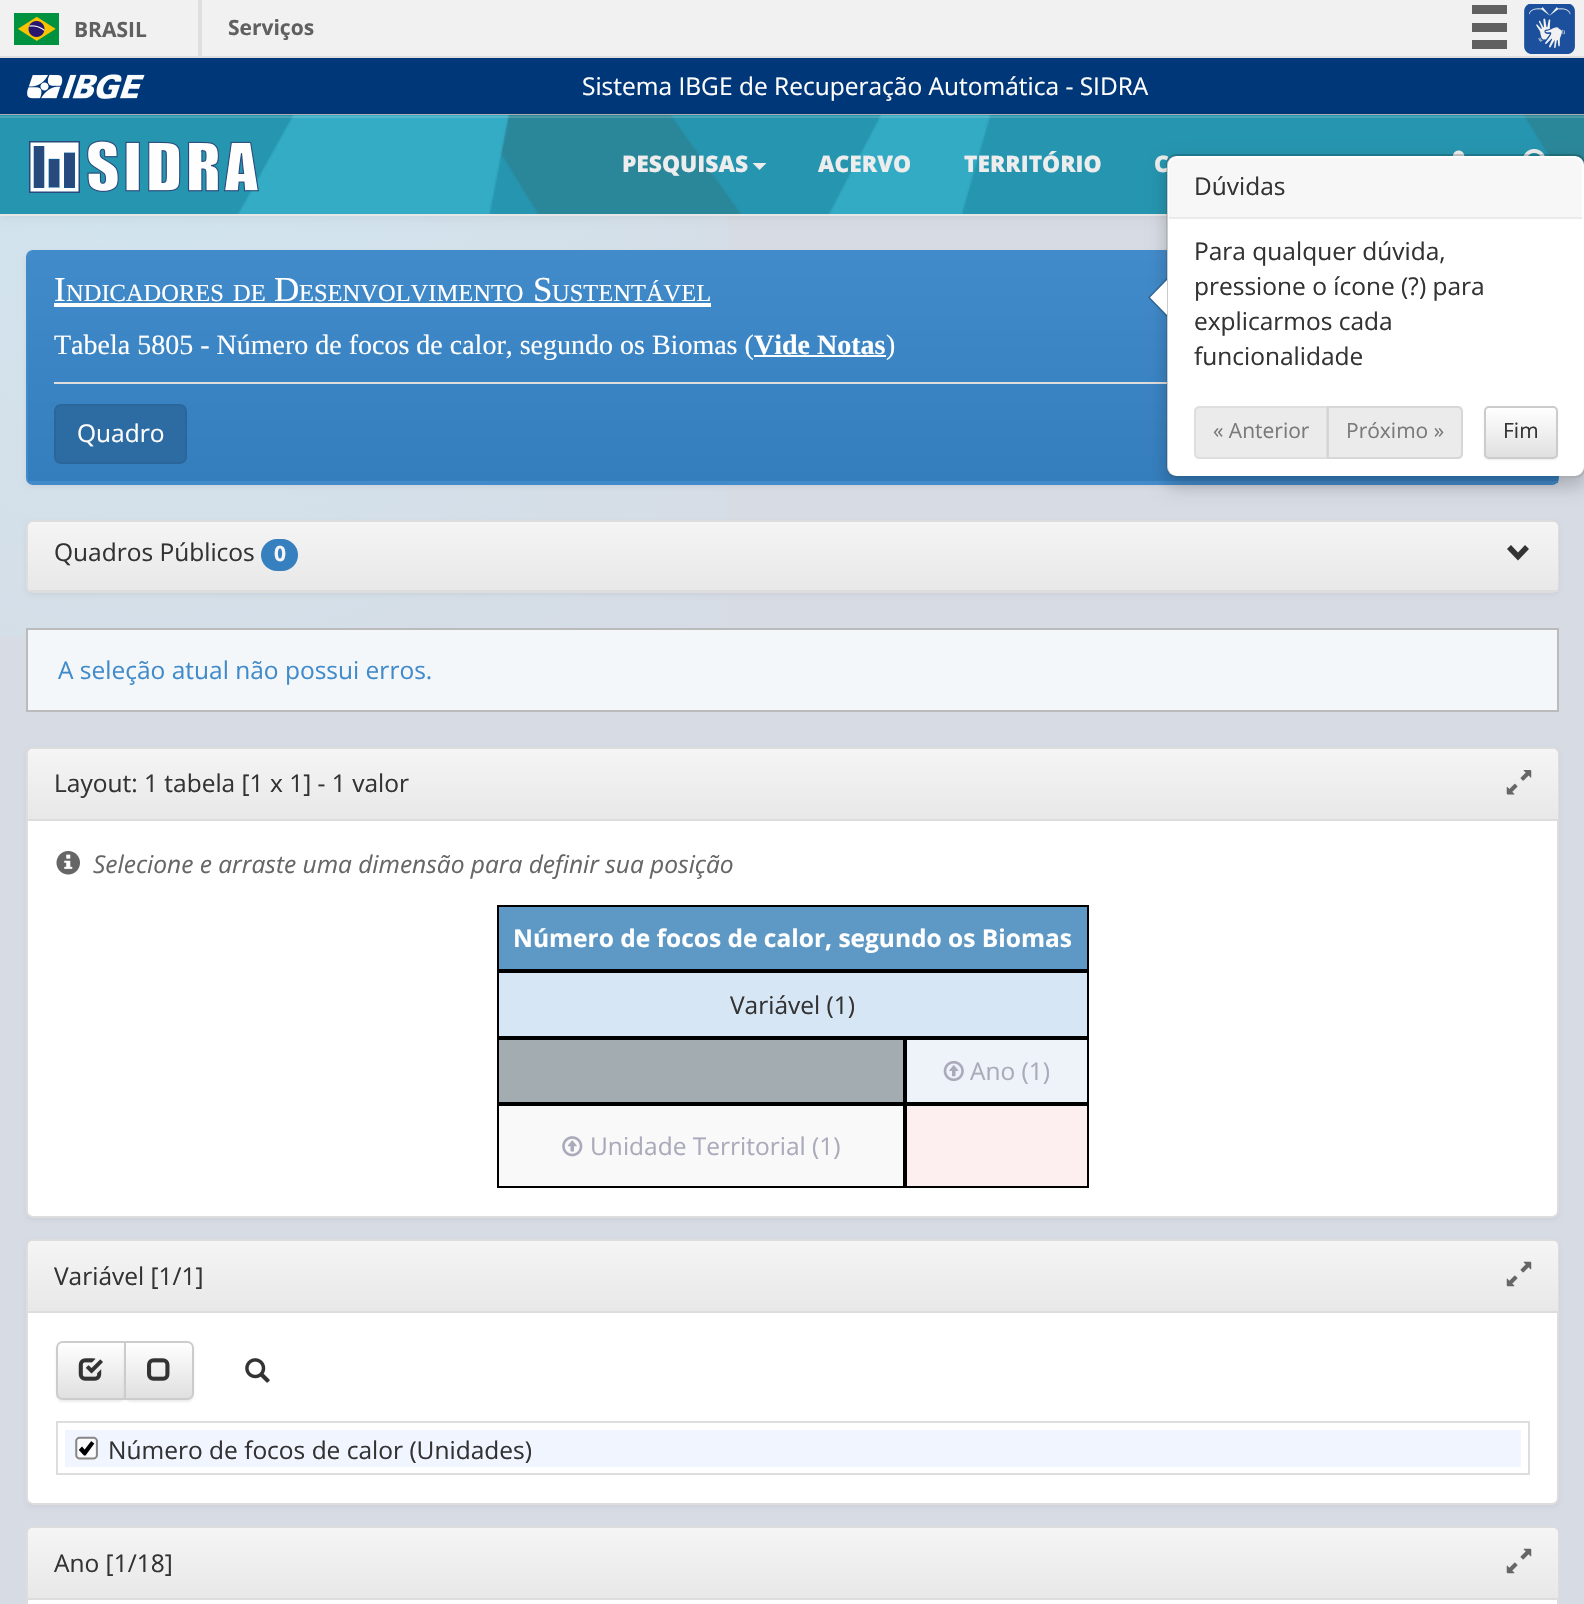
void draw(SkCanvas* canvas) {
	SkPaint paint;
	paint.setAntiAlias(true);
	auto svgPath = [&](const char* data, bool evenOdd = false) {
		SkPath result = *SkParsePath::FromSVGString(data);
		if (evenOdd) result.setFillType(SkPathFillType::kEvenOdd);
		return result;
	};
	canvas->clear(0xffd7dbe4);
	canvas->drawImageRect(SkImages::DeferredFromEncodedData(SkData::MakeFromFileName("img1.png")), SkRect::MakeXYWH(0, 216, 728, 421), SkSamplingOptions());
	paint.setColor(0xfff1f1f1);
	canvas->drawRect(SkRect::MakeXYWH(0, 0, 1584, 56), paint);
	paint.setColor(0xffdfdfdf);
	canvas->drawRect(SkRect::MakeXYWH(0, 56, 1584, 2), paint);
	canvas->drawRect(SkRect::MakeXYWH(198, 0, 4, 56), paint);
	canvas->drawImageRect(SkImages::DeferredFromEncodedData(SkData::MakeFromFileName("img2.png")), SkRect::MakeXYWH(14, 13, 45, 32), SkSamplingOptions());
	SkFont f1(fontMgr->matchFamilyStyle("Open Sans", SkFontStyle::Bold()), 21);
	f1.setSubpixel(true);
	paint.setColor(0xff606060);
	canvas->drawString("BRASIL", 74, 37, f1, paint);
	canvas->drawString("Serviços", 228, 35, f1, paint);
	canvas->drawRect(SkRect::MakeXYWH(1472, 5, 35, 9), paint);
	canvas->drawRect(SkRect::MakeXYWH(1472, 23, 35, 9), paint);
	canvas->drawRect(SkRect::MakeXYWH(1472, 40, 35, 9), paint);
	canvas->drawImageRect(SkImages::DeferredFromEncodedData(SkData::MakeFromFileName("img3.png")), SkRect::MakeXYWH(1524, 4, 51, 50), SkSamplingOptions());
	paint.setColor(0xff003778);
	canvas->drawRect(SkRect::MakeXYWH(0, 58, 1584, 56), paint);
	paint.setColor(0xffb3b3b3);
	canvas->drawRect(SkRect::MakeXYWH(0, 114, 1584, 1), paint);
	canvas->drawImageRect(SkImages::DeferredFromEncodedData(SkData::MakeFromFileName("img4.png")), SkRect::MakeXYWH(27, 74, 118, 25), SkSamplingOptions());
	SkFont f2(fontMgr->matchFamilyStyle("Open Sans", SkFontStyle::Normal()), 24.5);
	f2.setSubpixel(true);
	paint.setColor(0xffffffff);
	canvas->drawString("Sistema IBGE de Recuperação Automática - SIDRA", 582, 95, f2, paint);
	paint.setColor(0x12000000);
	paint.setMaskFilter(SkMaskFilter::MakeBlur(kNormal_SkBlurStyle, 4.5));
	canvas->drawRect(SkRect::MakeXYWH(0, 117, 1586, 100), paint);
	paint.setMaskFilter(nullptr);
	canvas->drawImageRect(SkImages::DeferredFromEncodedData(SkData::MakeFromFileName("img5.png")), SkRect::MakeXYWH(0, 115, 1584, 99), SkSamplingOptions());
	paint.setColor(0x26ffffff);
	canvas->drawRect(SkRect::MakeXYWH(0, 116, 1584, 2), paint);
	paint.setColor(0xffe7e7e7);
	canvas->drawRect(SkRect::MakeXYWH(0, 214, 1167, 2), paint);
	canvas->drawImageRect(SkImages::DeferredFromEncodedData(SkData::MakeFromFileName("img6.png")), SkRect::MakeXYWH(29, 140, 230, 53), SkSamplingOptions());
	SkFont f3(fontMgr->matchFamilyStyle("Open Sans", SkFontStyle(800, SkFontStyle::kNormal_Width, SkFontStyle::kUpright_Slant)), 22.75);
	f3.setSubpixel(true);
	paint.setColor(0xffededed);
	canvas->drawString("TERRITÓRIO", 964, 172, f3, paint);
	canvas->drawImageRect(SkImages::DeferredFromEncodedData(SkData::MakeFromFileName("img7.png")), SkRect::MakeXYWH(1453, 150, 12, 6), SkSamplingOptions());
	canvas->drawImageRect(SkImages::DeferredFromEncodedData(SkData::MakeFromFileName("img8.png")), SkRect::MakeXYWH(1523, 149, 22, 7), SkSamplingOptions());
	canvas->drawString("PESQUISAS", 622, 172, f3, paint);
	canvas->drawPath(svgPath("M752.5 163H766.5L759.5 170Z"), paint);
	canvas->drawString("ACERVO", 818, 172, f3, paint);
	canvas->drawString("C", 1154, 172, f3, paint);
	paint.setColor(0x0d000000);
	paint.setMaskFilter(SkMaskFilter::MakeBlur(kNormal_SkBlurStyle, 2));
	canvas->drawRoundRect(SkRect::MakeXYWH(26, 252, 1533, 235), 7, 7, paint);
	paint.setMaskFilter(nullptr);
	paint.setStroke(true);
	paint.setStrokeWidth(2);
	paint.setColor(0xff428bca);
	canvas->drawRoundRect(SkRect::MakeXYWH(27, 251, 1531, 233), 6, 6, paint);
	paint.setStroke(false);
	canvas->drawPath(svgPath("M33 252H1553C1556 252 1558 254 1558 257V483H28V257C28 254 30 252 33 252Z"), paint);
	{
		const SkColor colors[] = {0xff428bca, 0xff357ebd};
		const float stops[] = {0, 1};
		const SkPoint ends[] = {{793, 252}, {793, 481}};
		paint.setShader(SkGradientShader::MakeLinear(ends, colors, stops, 2, SkTileMode::kClamp));
		paint.setAlpha(255);
	}
	canvas->drawPath(svgPath("M33 252H1553C1556 252 1558 254 1558 257V481H28V257C28 254 30 252 33 252Z"), paint);
	SkFont f4(fontMgr->matchFamilyStyle("Liberation Serif", SkFontStyle::Normal()), 35);
	f4.setSubpixel(true);
	paint.setShader(nullptr);
	paint.setColor(0xffffffff);
	canvas->drawString("I", 54, 301, f4, paint);
	SkFont f5(fontMgr->matchFamilyStyle("Liberation Serif", SkFontStyle::Normal()), 24.5);
	f5.setSubpixel(true);
	canvas->drawString("NDICADORES", 66, 301, f5, paint);
	canvas->drawRect(SkRect::MakeXYWH(54, 303, 657, 4), paint);
	canvas->drawString("DE", 233, 301, f5, paint);
	canvas->drawString("D", 274, 301, f4, paint);
	canvas->drawString("ESENVOLVIMENTO", 299, 301, f5, paint);
	canvas->drawString("S", 533, 301, f4, paint);
	canvas->drawString("USTENTÁVEL", 552, 301, f5, paint);
	SkFont f6(fontMgr->matchFamilyStyle("Liberation Serif", SkFontStyle::Normal()), 28);
	f6.setSubpixel(true);
	canvas->drawString("Tabela 5805 - Número de focos de calor, segundo os Biomas (", 54, 354, f6, paint);
	SkFont f7(fontMgr->matchFamilyStyle("Liberation Serif", SkFontStyle::Bold()), 28);
	f7.setSubpixel(true);
	canvas->drawString("Vide Notas", 754, 354, f7, paint);
	canvas->drawRect(SkRect::MakeXYWH(754, 355, 132, 2), paint);
	canvas->drawString(")", 886, 354, f6, paint);
	paint.setColor(0xffdddddd);
	canvas->drawRect(SkRect::MakeXYWH(54, 382, 1113, 2), paint);
	paint.setColor(0xff2d6ca2);
	canvas->drawRoundRect(SkRect::MakeXYWH(55, 405, 131, 58), 6, 6, paint);
	paint.setStroke(true);
	paint.setColor(0xff2b669a);
	canvas->drawRoundRect(SkRect::MakeXYWH(55, 405, 131, 58), 6, 6, paint);
	paint.setStroke(false);
	paint.setColor(0xffffffff);
	canvas->drawString("Quadro", 77, 442, f2, paint);
	paint.setColor(0x0d000000);
	paint.setMaskFilter(SkMaskFilter::MakeBlur(kNormal_SkBlurStyle, 2));
	canvas->drawRoundRect(SkRect::MakeXYWH(26, 522, 1533, 73), 7, 7, paint);
	paint.setMaskFilter(nullptr);
	paint.setStroke(true);
	paint.setColor(0xffdddddd);
	canvas->drawRoundRect(SkRect::MakeXYWH(27, 521, 1531, 71), 6, 6, paint);
	paint.setStroke(false);
	{
		const SkColor colors[] = {0xfff5f5f5, 0xffe8e8e8};
		const float stops[] = {0, 1};
		const SkPoint ends[] = {{793, 521}, {793, 590}};
		paint.setShader(SkGradientShader::MakeLinear(ends, colors, stops, 2, SkTileMode::kClamp));
		paint.setAlpha(255);
	}
	canvas->drawPath(svgPath("M33 522H1553C1556 522 1558 524 1558 527V590H28V527C28 524 30 522 33 522Z"), paint);
	paint.setShader(nullptr);
	paint.setColor(0xffdddddd);
	canvas->drawRect(SkRect::MakeXYWH(28, 590, 1530, 2), paint);
	paint.setColor(0xff333333);
	canvas->drawString("Quadros Públicos", 54, 561, f2, paint);
	paint.setColor(0xff3780bf);
	canvas->drawRoundRect(SkRect::MakeXYWH(261, 539, 37, 32), 16, 16, paint);
	paint.setColor(0xfff5f5f5);
	canvas->drawString("0", 274, 561, f1, paint);
	paint.setColor(0xff333333);
	canvas->drawPath(svgPath("M1529 549L1518 560.5L1507 549L1511 545L1518 552.5L1525 545Z"), paint);
	paint.setColor(0xfff3f7fa);
	canvas->drawRect(SkRect::MakeXYWH(27, 629, 1531, 82), paint);
	paint.setStroke(true);
	paint.setColor(0xffbbbbbb);
	canvas->drawRect(SkRect::MakeXYWH(27, 629, 1531, 82), paint);
	paint.setStroke(false);
	paint.setColor(0xff428bca);
	canvas->drawString("A seleção atual não possui erros.", 58, 679, f2, paint);
	paint.setColor(0x0d000000);
	paint.setMaskFilter(SkMaskFilter::MakeBlur(kNormal_SkBlurStyle, 2));
	canvas->drawRoundRect(SkRect::MakeXYWH(26, 749, 1533, 471), 7, 7, paint);
	paint.setMaskFilter(nullptr);
	paint.setColor(0xffffffff);
	canvas->drawRoundRect(SkRect::MakeXYWH(27, 748, 1531, 469), 6, 6, paint);
	paint.setStroke(true);
	paint.setColor(0xffdddddd);
	canvas->drawRoundRect(SkRect::MakeXYWH(27, 748, 1531, 469), 6, 6, paint);
	paint.setStroke(false);
	{
		const SkColor colors[] = {0xfff5f5f5, 0xffe8e8e8};
		const float stops[] = {0, 1};
		const SkPoint ends[] = {{793, 749}, {793, 819}};
		paint.setShader(SkGradientShader::MakeLinear(ends, colors, stops, 2, SkTileMode::kClamp));
		paint.setAlpha(255);
	}
	canvas->drawPath(svgPath("M33 749H1553C1556 749 1558 751 1558 754V819H28V754C28 751 30 749 33 749Z"), paint);
	paint.setShader(nullptr);
	paint.setColor(0xff333333);
	canvas->drawString("Layout: 1 tabela [1 x 1] - 1 valor", 54, 792, f2, paint);
	canvas->drawImageRect(SkImages::DeferredFromEncodedData(SkData::MakeFromFileName("img9.png")), SkRect::MakeXYWH(1506, 770, 26, 25), SkSamplingOptions());
	paint.setColor(0xffdddddd);
	canvas->drawRect(SkRect::MakeXYWH(28, 819, 1530, 2), paint);
	canvas->drawImageRect(SkImages::DeferredFromEncodedData(SkData::MakeFromFileName("img10.png")), SkRect::MakeXYWH(56, 851, 24, 24), SkSamplingOptions());
	SkFont f8(fontMgr->matchFamilyStyle("Open Sans", SkFontStyle::Italic()), 24.5);
	f8.setSubpixel(true);
	paint.setColor(0xff666666);
	canvas->drawString("Selecione e arraste uma dimensão para definir sua posição", 93, 873, f8, paint);
	paint.setColor(0xff5e98c4);
	canvas->drawRect(SkRect::MakeXYWH(498, 906, 590, 64), paint);
	paint.setStroke(true);
	paint.setColor(0xff000000);
	canvas->drawRect(SkRect::MakeXYWH(498, 906, 590, 64), paint);
	SkFont f9(fontMgr->matchFamilyStyle("Open Sans", SkFontStyle::Bold()), 24.5);
	f9.setSubpixel(true);
	paint.setStroke(false);
	paint.setColor(0xffffffff);
	canvas->drawString("Número de focos de calor, segundo os Biomas", 513, 947, f9, paint);
	paint.setColor(0xffd7e6f4);
	canvas->drawRect(SkRect::MakeXYWH(498, 972, 590, 65), paint);
	paint.setStroke(true);
	paint.setColor(0xff000000);
	canvas->drawRect(SkRect::MakeXYWH(498, 972, 590, 65), paint);
	paint.setStroke(false);
	paint.setColor(0xff333333);
	canvas->drawString("Variável (1)", 730, 1014, f2, paint);
	paint.setColor(0xffa3acb0);
	canvas->drawRect(SkRect::MakeXYWH(498, 1039, 406, 64), paint);
	paint.setStroke(true);
	paint.setColor(0xff000000);
	canvas->drawRect(SkRect::MakeXYWH(498, 1039, 406, 64), paint);
	paint.setStroke(false);
	paint.setColor(0xffedf3f8);
	canvas->drawRect(SkRect::MakeXYWH(906, 1039, 182, 64), paint);
	paint.setStroke(true);
	paint.setColor(0xff000000);
	canvas->drawRect(SkRect::MakeXYWH(906, 1039, 182, 64), paint);
	canvas->drawImageRect(SkImages::DeferredFromEncodedData(SkData::MakeFromFileName("img11.png")), SkRect::MakeXYWH(943, 1060, 21, 22), SkSamplingOptions());
	paint.setStroke(false);
	paint.setColor(0xffaaaabb);
	canvas->drawString("Ano (1)", 970, 1080, f2, paint);
	paint.setColor(0xfff9f9f9);
	canvas->drawRect(SkRect::MakeXYWH(498, 1105, 406, 82), paint);
	paint.setStroke(true);
	paint.setColor(0xff000000);
	canvas->drawRect(SkRect::MakeXYWH(498, 1105, 406, 82), paint);
	canvas->drawImageRect(SkImages::DeferredFromEncodedData(SkData::MakeFromFileName("img12.png")), SkRect::MakeXYWH(562, 1136, 21, 21), SkSamplingOptions());
	paint.setStroke(false);
	paint.setColor(0xffaaaabb);
	canvas->drawString("Unidade Territorial (1)", 590, 1155, f2, paint);
	paint.setColor(0xfffdefef);
	canvas->drawRect(SkRect::MakeXYWH(906, 1105, 182, 82), paint);
	paint.setStroke(true);
	paint.setColor(0xff000000);
	canvas->drawRect(SkRect::MakeXYWH(906, 1105, 182, 82), paint);
	paint.setStroke(false);
	paint.setColor(0x0d000000);
	paint.setMaskFilter(SkMaskFilter::MakeBlur(kNormal_SkBlurStyle, 2));
	canvas->drawRoundRect(SkRect::MakeXYWH(26, 1241, 1533, 266), 7, 7, paint);
	paint.setMaskFilter(nullptr);
	paint.setColor(0xffffffff);
	canvas->drawRoundRect(SkRect::MakeXYWH(27, 1240, 1531, 264), 6, 6, paint);
	paint.setStroke(true);
	paint.setColor(0xffdddddd);
	canvas->drawRoundRect(SkRect::MakeXYWH(27, 1240, 1531, 264), 6, 6, paint);
	paint.setStroke(false);
	{
		const SkColor colors[] = {0xfff5f5f5, 0xffe8e8e8};
		const float stops[] = {0, 1};
		const SkPoint ends[] = {{793, 1241}, {793, 1311}};
		paint.setShader(SkGradientShader::MakeLinear(ends, colors, stops, 2, SkTileMode::kClamp));
		paint.setAlpha(255);
	}
	canvas->drawPath(svgPath("M33 1241H1553C1556 1241 1558 1243 1558 1246V1311H28V1246C28 1243 30 1241 33 1241Z"), paint);
	paint.setShader(nullptr);
	paint.setColor(0xff333333);
	canvas->drawString("Variável [1/1]", 54, 1285, f2, paint);
	canvas->drawImageRect(SkImages::DeferredFromEncodedData(SkData::MakeFromFileName("img13.png")), SkRect::MakeXYWH(1506, 1261, 26, 26), SkSamplingOptions());
	paint.setColor(0xffdddddd);
	canvas->drawRect(SkRect::MakeXYWH(28, 1311, 1530, 2), paint);
	paint.setColor(0x12000000);
	paint.setMaskFilter(SkMaskFilter::MakeBlur(kNormal_SkBlurStyle, 1));
	canvas->drawRoundRect(SkRect::MakeXYWH(56, 1342, 70, 60), 7, 7, paint);
	paint.setMaskFilter(nullptr);
	canvas->save();
	canvas->clipPath(svgPath("M63 1341H126V1400H63C59 1400 56 1397 56 1393V1348C56 1344 59 1341 63 1341Z"), true);
	{
		const SkColor colors[] = {0xffffffff, 0xffe0e0e0};
		const float stops[] = {0, 1};
		const SkPoint ends[] = {{91, 1342}, {91, 1398}};
		paint.setShader(SkGradientShader::MakeLinear(ends, colors, stops, 2, SkTileMode::kClamp));
		paint.setAlpha(255);
	}
	canvas->drawRect(SkRect::MakeXYWH(56, 1342, 68, 56), paint);
	canvas->restore();
	paint.setStroke(true);
	paint.setShader(nullptr);
	paint.setColor(0xffcccccc);
	canvas->drawPath(svgPath("M63 1342H125V1399H63C59.5 1399 57 1396.5 57 1393V1348C57 1344.5 59.5 1342 63 1342Z"), paint);
	canvas->drawImageRect(SkImages::DeferredFromEncodedData(SkData::MakeFromFileName("img14.png")), SkRect::MakeXYWH(78, 1358, 25, 23), SkSamplingOptions());
	paint.setStroke(false);
	paint.setColor(0x12000000);
	paint.setMaskFilter(SkMaskFilter::MakeBlur(kNormal_SkBlurStyle, 1));
	canvas->drawRoundRect(SkRect::MakeXYWH(124, 1342, 70, 60), 7, 7, paint);
	paint.setMaskFilter(nullptr);
	canvas->save();
	canvas->clipPath(svgPath("M124 1341H187C191 1341 194 1344 194 1348V1393C194 1397 191 1400 187 1400H124Z"), true);
	{
		const SkColor colors[] = {0xffffffff, 0xffe0e0e0};
		const float stops[] = {0, 1};
		const SkPoint ends[] = {{159, 1342}, {159, 1398}};
		paint.setShader(SkGradientShader::MakeLinear(ends, colors, stops, 2, SkTileMode::kClamp));
		paint.setAlpha(255);
	}
	canvas->drawRect(SkRect::MakeXYWH(126, 1342, 68, 56), paint);
	canvas->restore();
	paint.setShader(nullptr);
	paint.setColor(0x26ffffff);
	canvas->drawPath(svgPath("M126 1344H177C196 1344 192 1344 192 1364V1396C193 1395 193 1394 193 1393V1347C193 1344 191 1342 188 1342H126Z"), paint);
	paint.setStroke(true);
	paint.setColor(0xffcccccc);
	canvas->drawPath(svgPath("M125 1342H187C190.5 1342 193 1344.5 193 1348V1393C193 1396.5 190.5 1399 187 1399H125Z"), paint);
	canvas->drawImageRect(SkImages::DeferredFromEncodedData(SkData::MakeFromFileName("img15.png")), SkRect::MakeXYWH(147, 1358, 23, 23), SkSamplingOptions());
	canvas->drawImageRect(SkImages::DeferredFromEncodedData(SkData::MakeFromFileName("img16.png")), SkRect::MakeXYWH(245, 1358, 25, 25), SkSamplingOptions());
	paint.setColor(0xffdddddd);
	canvas->drawRect(SkRect::MakeXYWH(57, 1422, 1472, 52), paint);
	paint.setStroke(false);
	paint.setColor(0xfff0f5ff);
	canvas->drawRect(SkRect::MakeXYWH(65, 1430, 1456, 37), paint);
	paint.setColor(0xfffcfcff);
	canvas->drawRect(SkRect::MakeXYWH(75, 1437, 23, 23), paint);
	canvas->drawImageRect(SkImages::DeferredFromEncodedData(SkData::MakeFromFileName("img17.png")), SkRect::MakeXYWH(75, 1436, 23, 24), SkSamplingOptions());
	canvas->drawImageRect(SkImages::DeferredFromEncodedData(SkData::MakeFromFileName("img18.png")), SkRect::MakeXYWH(78, 1441, 17, 15), SkSamplingOptions());
	paint.setColor(0xff333333);
	canvas->drawString("Número de focos de calor (Unidades)", 108, 1459, f2, paint);
	paint.setColor(0xffffffff);
	canvas->drawRoundRect(SkRect::MakeXYWH(27, 1527, 1531, 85), 6, 6, paint);
	paint.setStroke(true);
	paint.setColor(0xffdddddd);
	canvas->drawRoundRect(SkRect::MakeXYWH(27, 1527, 1531, 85), 6, 6, paint);
	paint.setStroke(false);
	{
		const SkColor colors[] = {0xfff5f5f5, 0xffe8e8e8};
		const float stops[] = {0, 1};
		const SkPoint ends[] = {{793, 1528}, {793, 1598}};
		paint.setShader(SkGradientShader::MakeLinear(ends, colors, stops, 2, SkTileMode::kClamp));
		paint.setAlpha(255);
	}
	canvas->drawPath(svgPath("M33 1528H1553C1556 1528 1558 1530 1558 1533V1598H28V1533C28 1530 30 1528 33 1528Z"), paint);
	paint.setShader(nullptr);
	paint.setColor(0xff333333);
	canvas->drawString("Ano [1/18]", 54, 1572, f2, paint);
	canvas->drawImageRect(SkImages::DeferredFromEncodedData(SkData::MakeFromFileName("img13.png")), SkRect::MakeXYWH(1506, 1548, 26, 26), SkSamplingOptions());
	paint.setColor(0xffdddddd);
	canvas->drawRect(SkRect::MakeXYWH(28, 1598, 1530, 2), paint);
	canvas->save();
	canvas->clipPath(svgPath("M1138 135H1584V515H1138ZM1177 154H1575C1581 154 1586 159 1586 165V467C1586 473 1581 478 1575 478H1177C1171 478 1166 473 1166 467V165C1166 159 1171 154 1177 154Z", true), true);
	paint.setColor(0x33000000);
	paint.setMaskFilter(SkMaskFilter::MakeBlur(kNormal_SkBlurStyle, 9));
	canvas->drawRoundRect(SkRect::MakeXYWH(1166, 163, 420, 324), 11, 11, paint);
	paint.setMaskFilter(nullptr);
	canvas->restore();
	paint.setColor(0xffffffff);
	canvas->drawRoundRect(SkRect::MakeXYWH(1167, 156, 417, 320), 9, 9, paint);
	paint.setStroke(true);
	paint.setColor(0x33000000);
	canvas->drawRoundRect(SkRect::MakeXYWH(1167, 155, 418, 322), 10, 10, paint);
	paint.setStroke(false);
	paint.setColor(0xfff7f7f7);
	canvas->drawPath(svgPath("M1178 158H1573C1578 158 1582 162 1582 167V219H1169V167C1169 162 1173 158 1178 158Z"), paint);
	paint.setColor(0xffebebeb);
	canvas->drawRect(SkRect::MakeXYWH(1169, 217, 413, 2), paint);
	paint.setColor(0xff333333);
	canvas->drawString("Dúvidas", 1194, 195, f2, paint);
	paint.setColor(0x40000000);
	canvas->drawPath(svgPath("M1167 278V317L1148 297.5Z"), paint);
	paint.setColor(0xffffffff);
	canvas->drawPath(svgPath("M1167 280V315L1150 297.5Z"), paint);
	paint.setColor(0xff333333);
	canvas->drawString("Para qualquer dúvida,", 1194, 260, f2, paint);
	canvas->drawString("pressione o ícone (?) para", 1194, 295, f2, paint);
	canvas->drawString("explicarmos cada", 1194, 330, f2, paint);
	canvas->drawString("funcionalidade", 1194, 365, f2, paint);
	paint.setColor(0xffebebeb);
	canvas->drawPath(svgPath("M1199 407H1327V458H1199C1197 458 1195 456 1195 454V411C1195 409 1197 407 1199 407Z"), paint);
	paint.setStroke(true);
	paint.setColor(0xffdedede);
	canvas->drawPath(svgPath("M1199 407H1327V458H1199C1197 458 1195 456 1195 454V411C1195 409 1197 407 1199 407Z"), paint);
	SkFont f10(fontMgr->matchFamilyStyle("Open Sans", SkFontStyle::Normal()), 21);
	f10.setSubpixel(true);
	paint.setStroke(false);
	paint.setColor(0xff7a7a7a);
	canvas->drawString("« Anterior", 1213, 438, f10, paint);
	paint.setColor(0xa6e0e0e0);
	canvas->drawPath(svgPath("M1327 406H1458C1461 406 1463 408 1463 411V454C1463 457 1461 459 1458 459H1327Z"), paint);
	paint.setStroke(true);
	paint.setColor(0xa6cccccc);
	canvas->drawPath(svgPath("M1328 407H1458C1460 407 1462 409 1462 411V454C1462 456 1460 458 1458 458H1328Z"), paint);
	paint.setStroke(false);
	paint.setColor(0xff7a7a7a);
	canvas->drawString("Próximo »", 1346, 438, f10, paint);
	paint.setColor(0x12000000);
	paint.setMaskFilter(SkMaskFilter::MakeBlur(kNormal_SkBlurStyle, 1));
	canvas->drawRoundRect(SkRect::MakeXYWH(1484, 408, 74, 52), 5, 5, paint);
	paint.setMaskFilter(nullptr);
	canvas->save();
	canvas->clipPath(svgPath("M1489 406H1553C1556 406 1558 408 1558 411V454C1558 457 1556 459 1553 459H1489C1486 459 1484 457 1484 454V411C1484 408 1486 406 1489 406Z"), true);
	{
		const SkColor colors[] = {0xffffffff, 0xffe0e0e0};
		const float stops[] = {0, 1};
		const SkPoint ends[] = {{1521, 408}, {1521, 457}};
		paint.setShader(SkGradientShader::MakeLinear(ends, colors, stops, 2, SkTileMode::kClamp));
		paint.setAlpha(255);
	}
	canvas->drawRect(SkRect::MakeXYWH(1484, 408, 74, 49), paint);
	canvas->restore();
	paint.setStroke(true);
	paint.setShader(nullptr);
	paint.setColor(0xffcccccc);
	canvas->drawRoundRect(SkRect::MakeXYWH(1485, 407, 72, 51), 4, 4, paint);
	paint.setStroke(false);
	paint.setColor(0xff333333);
	canvas->drawString("Fim", 1503, 438, f10, paint);
}
